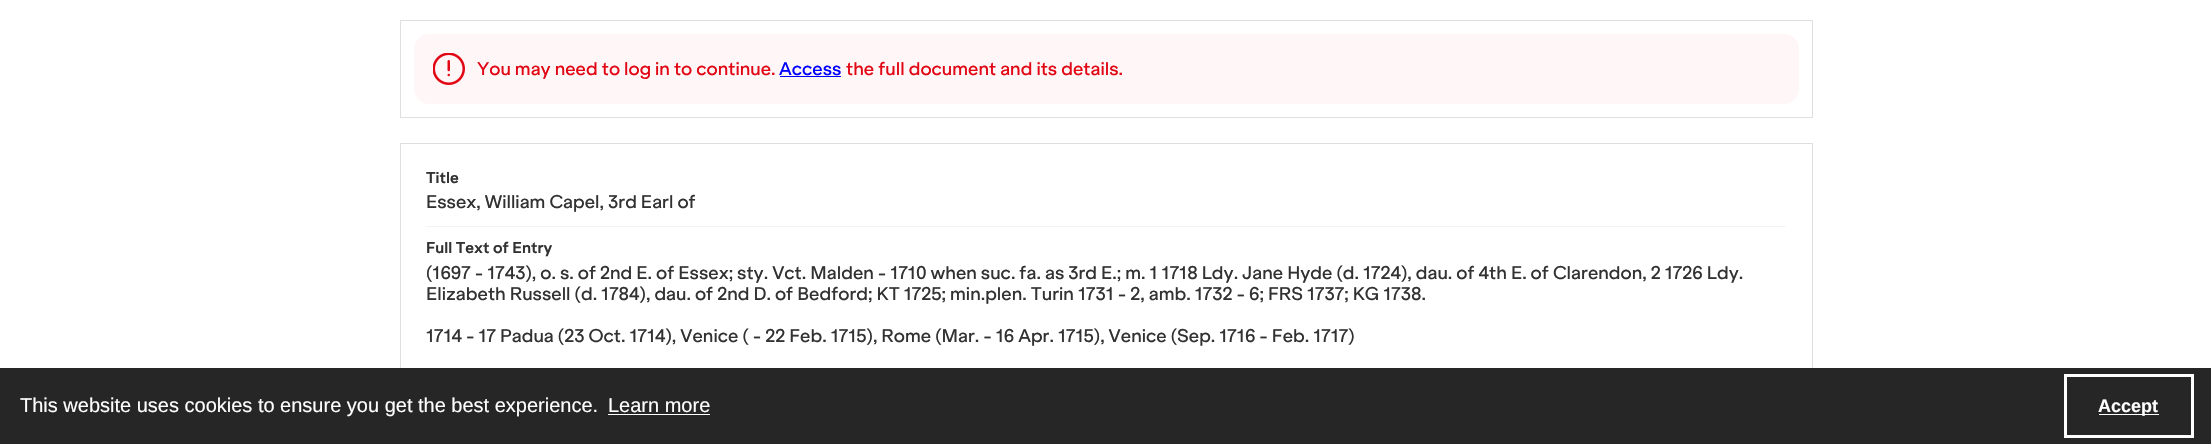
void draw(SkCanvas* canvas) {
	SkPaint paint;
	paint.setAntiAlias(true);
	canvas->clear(0xffffffff);
	paint.setStroke(true);
	paint.setStrokeWidth(1);
	paint.setColor(0xffdfdfdf);
	canvas->drawRect(SkRect::MakeXYWH(400.5, 20.5, 1412, 97), paint);
	paint.setStroke(false);
	paint.setColor(0xfffff6f7);
	canvas->drawRoundRect(SkRect::MakeXYWH(414, 34, 1385, 70), 15, 15, paint);
	canvas->drawImageRect(SkImages::DeferredFromEncodedData(SkData::MakeFromFileName("img1.png")), SkRect::MakeXYWH(433, 53, 32, 32), SkSamplingOptions());
	SkFont f1(fontMgr->matchFamilyStyle("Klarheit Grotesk", SkFontStyle(500, SkFontStyle::kNormal_Width, SkFontStyle::kUpright_Slant)), 17.5);
	f1.setSubpixel(true);
	paint.setColor(0xffe20714);
	canvas->drawString("You may need to log in to continue.", 477, 75, f1, paint);
	paint.setColor(0xff0000ff);
	canvas->drawString("Access", 779, 75, f1, paint);
	canvas->drawRect(SkRect::MakeXYWH(780, 76, 61, 1), paint);
	paint.setColor(0xffe20714);
	canvas->drawString("the full document and its details.", 846, 75, f1, paint);
	paint.setStroke(true);
	paint.setColor(0xffdfdfdf);
	canvas->drawRect(SkRect::MakeXYWH(400.5, 143.5, 1412, 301), paint);
	SkFont f2(fontMgr->matchFamilyStyle("Klarheit Grotesk", SkFontStyle::Bold()), 15);
	f2.setSubpixel(true);
	paint.setStroke(false);
	paint.setColor(0xff323232);
	canvas->drawString("Title", 426, 183, f2, paint);
	canvas->drawString("Essex, William Capel, 3rd Earl of", 426, 208, f1, paint);
	paint.setColor(0xfff3f3f3);
	canvas->drawRect(SkRect::MakeXYWH(426, 226, 1360, 1), paint);
	paint.setColor(0xff323232);
	canvas->drawString("Full Text of Entry", 426, 253, f2, paint);
	canvas->drawString("(1697 - 1743), o. s. of 2nd E. of Essex; sty. Vct. Malden - 1710 when suc. fa. as 3rd E.; m. 1 1718 Ldy. Jane Hyde (d. 1724), dau. of 4th E. of Clarendon, 2 1726 Ldy.", 426, 279, f1, paint);
	canvas->drawString("Elizabeth Russell (d. 1784), dau. of 2nd D. of Bedford; KT 1725; min.plen. Turin 1731 - 2, amb. 1732 - 6; FRS 1737; KG 1738.", 426, 300, f1, paint);
	canvas->drawString("1714 - 17 Padua (23 Oct. 1714), Venice ( - 22 Feb. 1715), Rome (Mar. - 16 Apr. 1715), Venice (Sep. 1716 - Feb. 1717)", 426, 342, f1, paint);
	paint.setColor(0xff262626);
	canvas->drawRect(SkRect::MakeXYWH(0, 368, 2211, 76), paint);
	SkFont f3(fontMgr->matchFamilyStyle("Liberation Sans", SkFontStyle::Normal()), 20);
	f3.setSubpixel(true);
	paint.setColor(0xffffffff);
	canvas->drawString("This website uses cookies to ensure you get the best experience.", 20, 412, f3, paint);
	canvas->drawString("Learn more", 608, 412, f3, paint);
	canvas->drawRect(SkRect::MakeXYWH(608, 414, 102, 1), paint);
	paint.setStroke(true);
	paint.setStrokeWidth(3);
	canvas->drawRect(SkRect::MakeXYWH(2065.5, 375.5, 127, 61), paint);
	paint.setStroke(false);
	canvas->drawRect(SkRect::MakeXYWH(2099, 414, 60, 1), paint);
	SkFont f4(fontMgr->matchFamilyStyle("Liberation Sans", SkFontStyle::Bold()), 18);
	f4.setSubpixel(true);
	canvas->drawString("Accept", 2098, 412, f4, paint);
}
